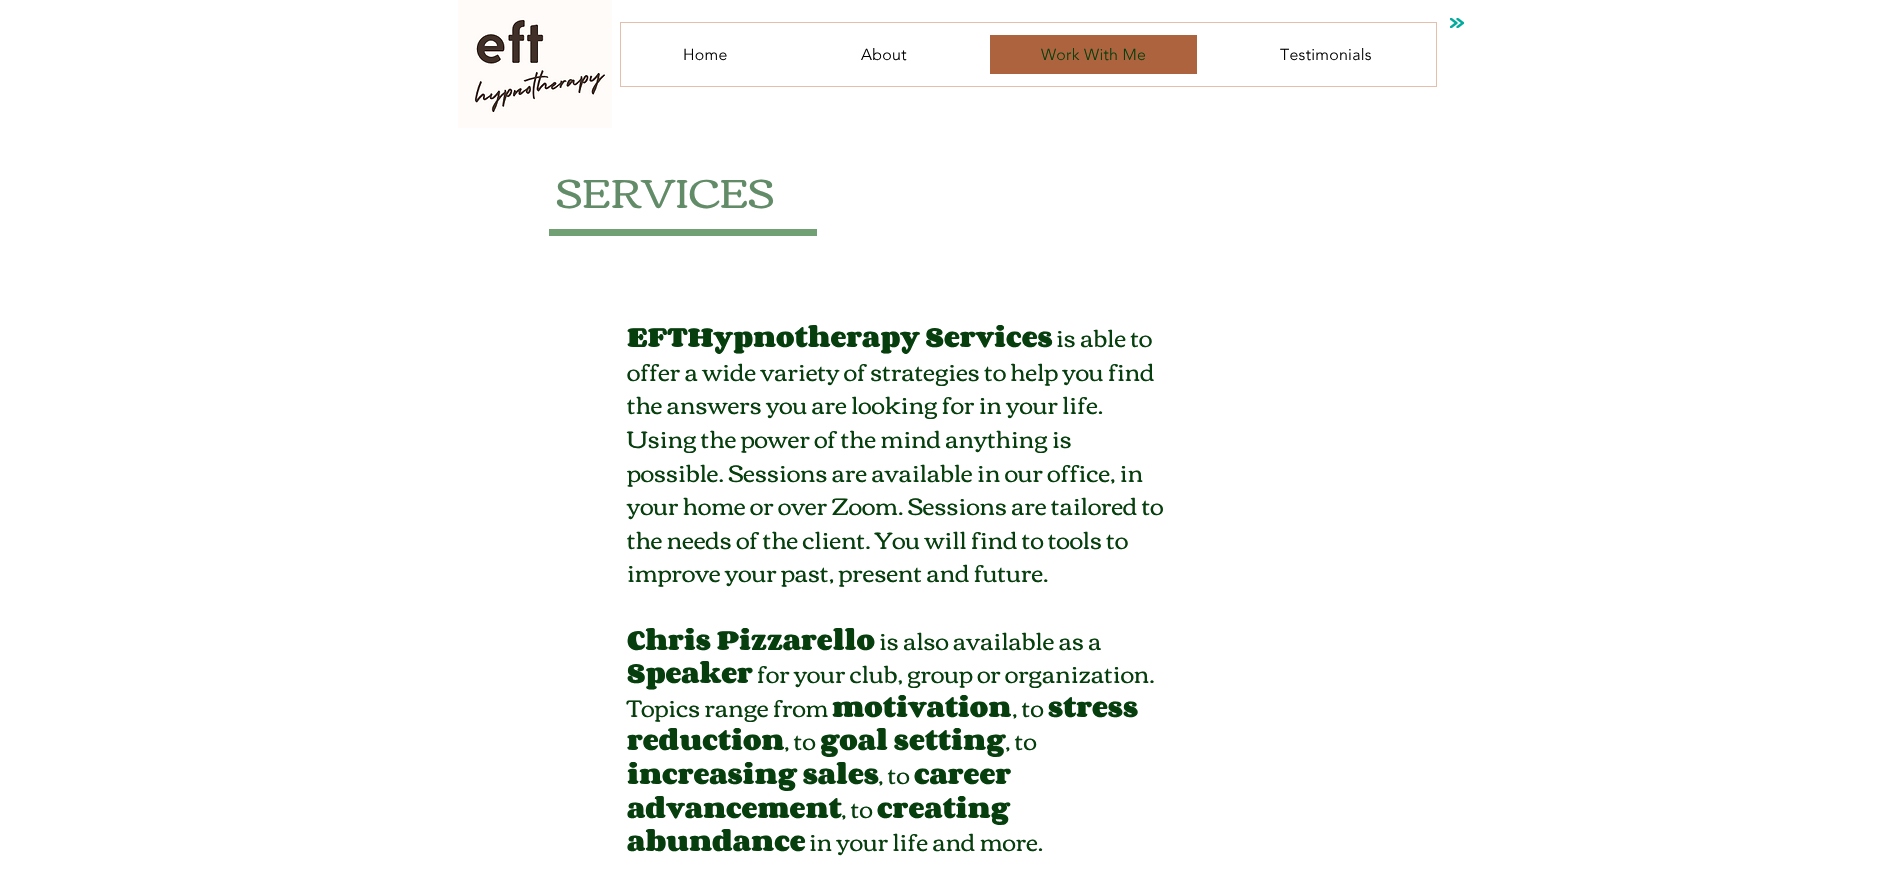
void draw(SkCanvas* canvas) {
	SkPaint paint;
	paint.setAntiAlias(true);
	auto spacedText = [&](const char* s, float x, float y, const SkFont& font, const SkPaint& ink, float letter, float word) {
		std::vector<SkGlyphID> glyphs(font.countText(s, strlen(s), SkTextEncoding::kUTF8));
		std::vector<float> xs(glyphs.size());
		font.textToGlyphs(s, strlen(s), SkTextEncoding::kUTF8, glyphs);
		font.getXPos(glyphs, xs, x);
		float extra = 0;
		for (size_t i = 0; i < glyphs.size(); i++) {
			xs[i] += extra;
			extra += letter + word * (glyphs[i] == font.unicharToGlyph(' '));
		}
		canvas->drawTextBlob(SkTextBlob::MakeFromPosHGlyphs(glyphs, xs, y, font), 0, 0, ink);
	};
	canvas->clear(0xffffffff);
	canvas->drawImageRect(SkImages::DeferredFromEncodedData(SkData::MakeFromFileName("img1.png")), SkRect::MakeXYWH(458, 0, 154, 128), SkSamplingOptions());
	canvas->drawImageRect(SkImages::DeferredFromEncodedData(SkData::MakeFromFileName("img2.png")), SkRect::MakeXYWH(1450, 18, 14, 10), SkSamplingOptions());
	paint.setStroke(true);
	paint.setStrokeWidth(1);
	paint.setColor(0xffe4bfad);
	canvas->drawRect(SkRect::MakeXYWH(620.5, 22.5, 816, 64), paint);
	SkFont f1(fontMgr->matchFamilyStyle("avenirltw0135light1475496", SkFontStyle(300, SkFontStyle::kNormal_Width, SkFontStyle::kUpright_Slant)), 16);
	f1.setSubpixel(true);
	paint.setStroke(false);
	paint.setColor(0xff000000);
	spacedText("Home", 683, 60, f1, paint, 0.25, 0);
	spacedText("About", 861, 60, f1, paint, 0.25, 0);
	paint.setColor(0xffae633f);
	canvas->drawRect(SkRect::MakeXYWH(990, 35, 207, 39), paint);
	paint.setColor(0xff063f0d);
	spacedText("Work With Me", 1041, 60, f1, paint, 0.25, 0);
	paint.setColor(0xff000000);
	spacedText("Testimonials", 1280, 60, f1, paint, 0.25, 0);
	SkFont f2(fontMgr->matchFamilyStyle("Corben", SkFontStyle::Normal()), 41);
	f2.setSubpixel(true);
	paint.setColor(0xff628c67);
	canvas->drawString("SERVICES", 556, 208, f2, paint);
	paint.setColor(0xff72a075);
	canvas->drawRect(SkRect::MakeXYWH(549, 229, 268, 7), paint);
	SkFont f3(fontMgr->matchFamilyStyle("Corben", SkFontStyle::Bold()), 24);
	f3.setSubpixel(true);
	paint.setColor(0xff063f0d);
	canvas->drawString("EFTHypnotherapy Services", 627, 347, f3, paint);
	SkFont f4(fontMgr->matchFamilyStyle("Corben", SkFontStyle::Normal()), 24);
	f4.setSubpixel(true);
	canvas->drawString("is able to", 1056, 347, f4, paint);
	canvas->drawString("offer a wide variety of strategies to help you find", 627, 381, f4, paint);
	canvas->drawString("the answers you are looking for in your life.", 627, 414, f4, paint);
	canvas->drawString("Using the power of the mind anything is", 627, 448, f4, paint);
	canvas->drawString("possible. Sessions are available in our office, in", 627, 482, f4, paint);
	canvas->drawString("your home or over Zoom. Sessions are tailored to", 627, 515, f4, paint);
	canvas->drawString("the needs of the client. You will find to tools to", 627, 549, f4, paint);
	canvas->drawString("improve your past, present and future.", 627, 582, f4, paint);
	canvas->drawString("Chris Pizzarello", 627, 650, f3, paint);
	canvas->drawString("is also available as a", 879, 650, f4, paint);
	canvas->drawString("Speaker", 627, 683, f3, paint);
	canvas->drawString("for your club, group or organization.", 757, 683, f4, paint);
	canvas->drawString("Topics range from", 627, 717, f4, paint);
	canvas->drawString("motivation", 832, 717, f3, paint);
	canvas->drawString(", to", 1012, 717, f4, paint);
	canvas->drawString("stress", 1048, 717, f3, paint);
	canvas->drawString("reduction", 627, 750, f3, paint);
	canvas->drawString(", to", 784, 750, f4, paint);
	canvas->drawString("goal setting", 820, 750, f3, paint);
	canvas->drawString(", to", 1005, 750, f4, paint);
	canvas->drawString("increasing sales", 627, 784, f3, paint);
	canvas->drawString(", to", 878, 784, f4, paint);
	canvas->drawString("career", 914, 784, f3, paint);
	canvas->drawString("advancement", 627, 818, f3, paint);
	canvas->drawString(", to", 841, 818, f4, paint);
	canvas->drawString("creating", 877, 818, f3, paint);
	canvas->drawString("abundance", 627, 851, f3, paint);
	canvas->drawString("in your life and more.", 809, 851, f4, paint);
}
